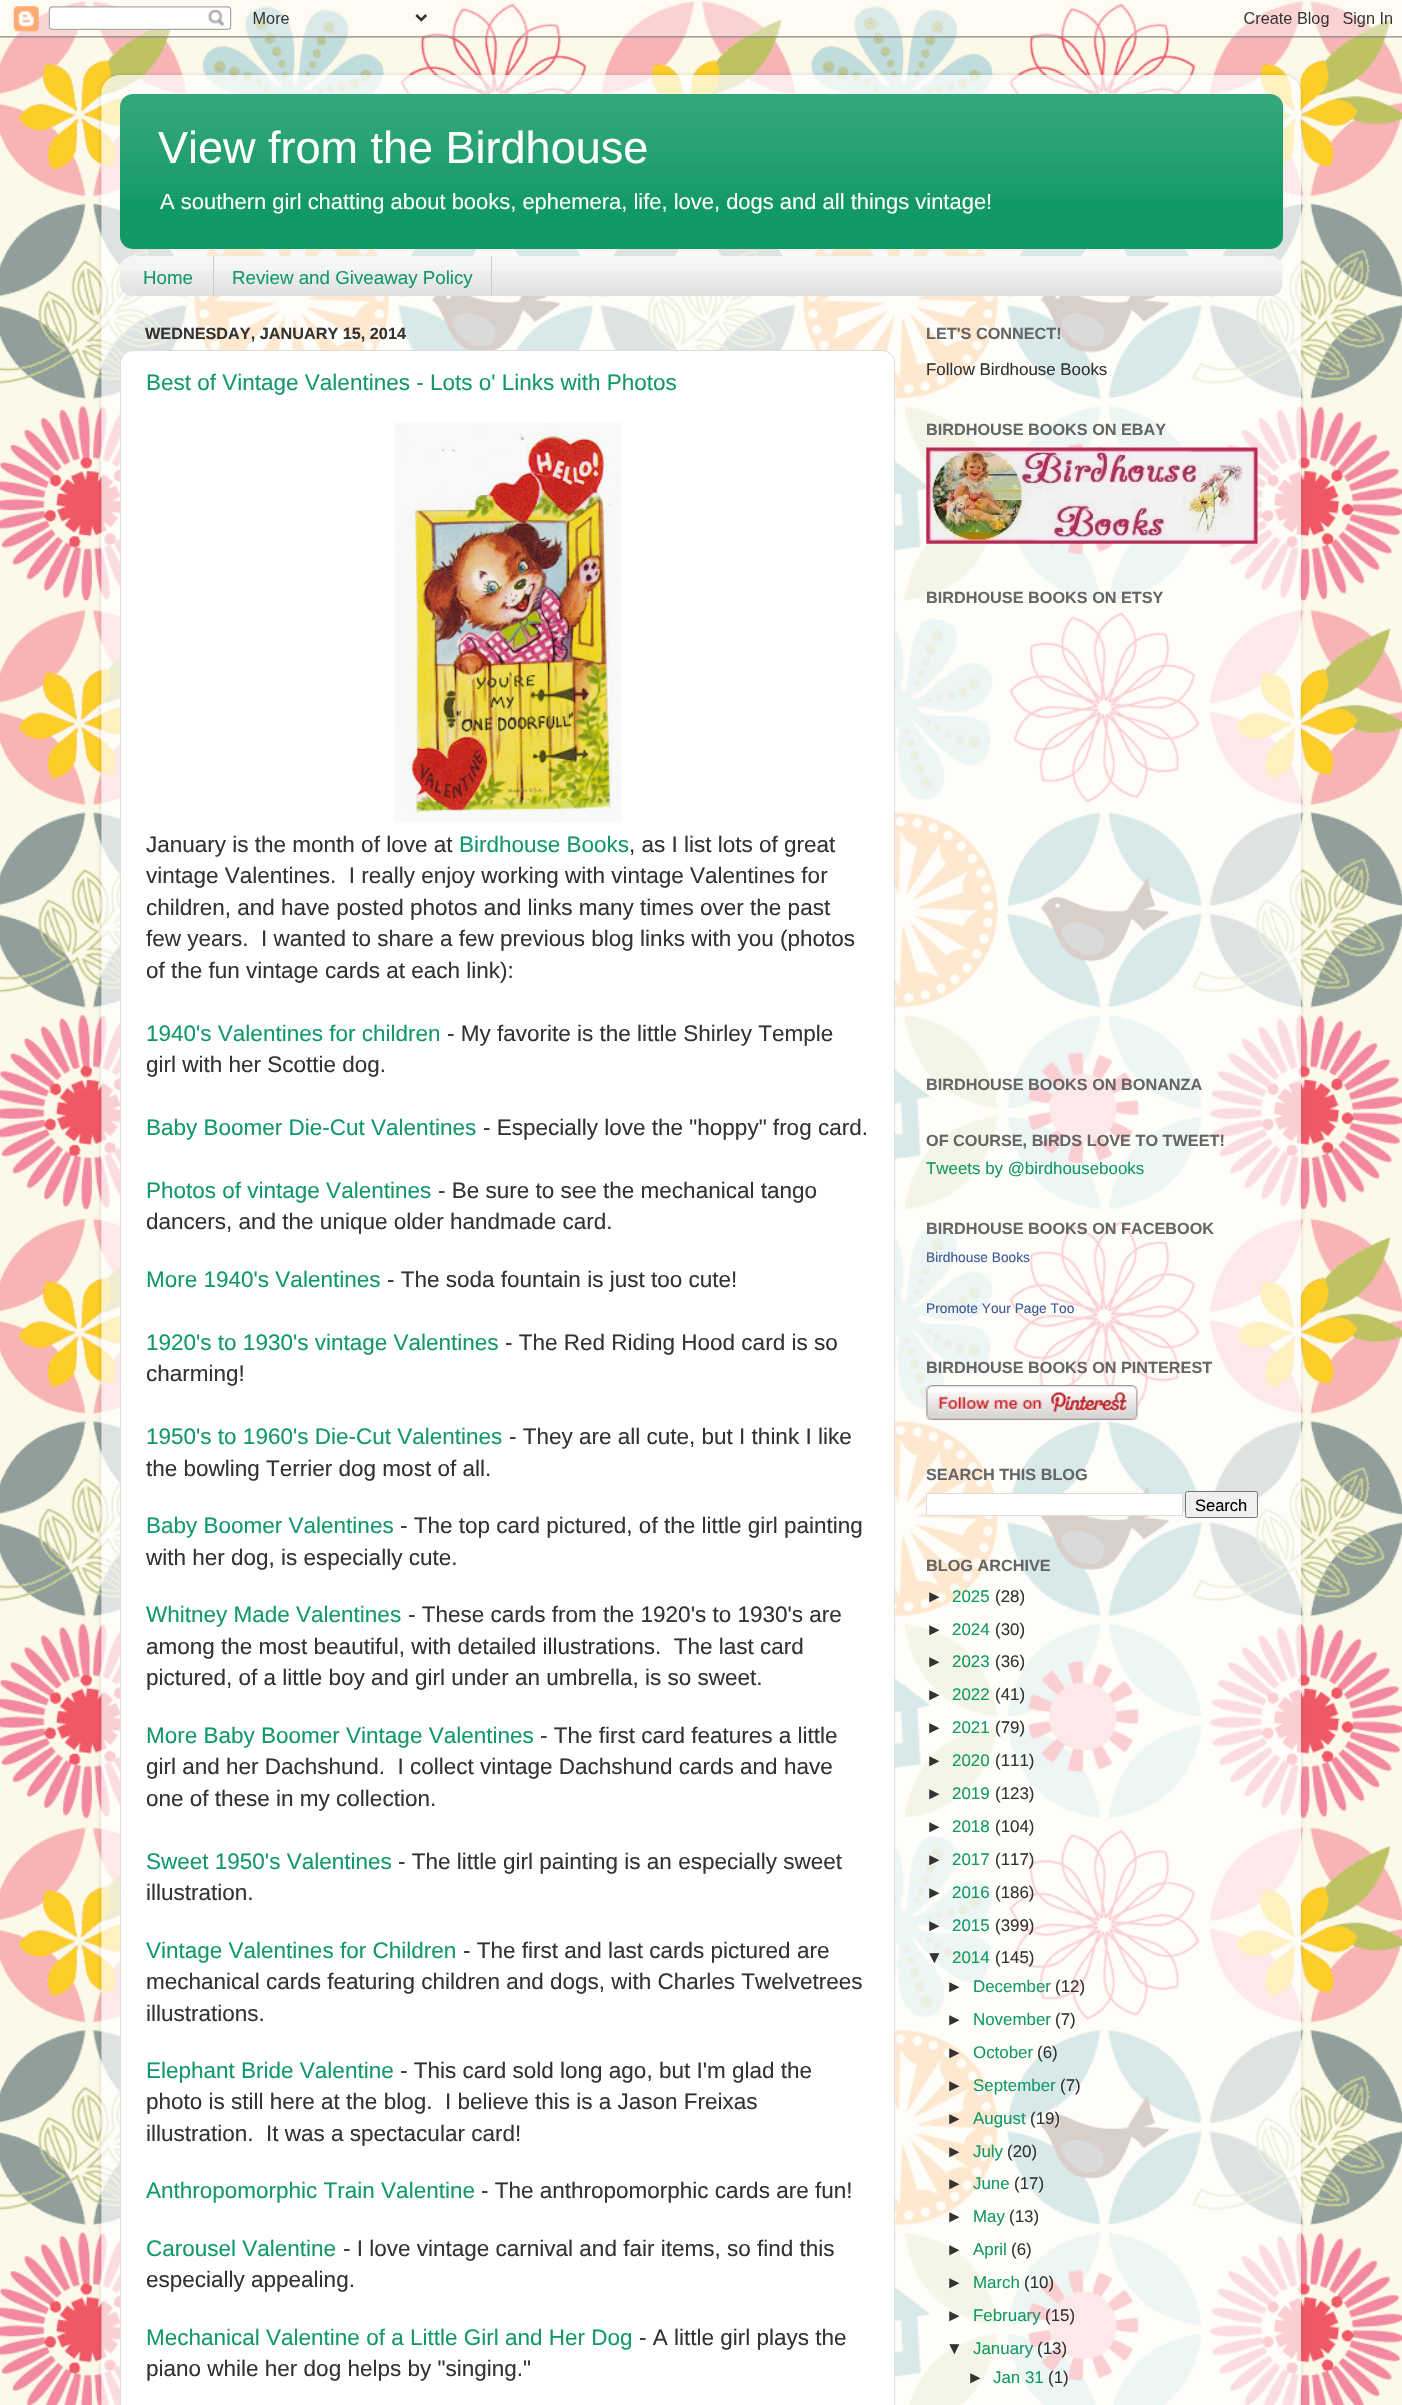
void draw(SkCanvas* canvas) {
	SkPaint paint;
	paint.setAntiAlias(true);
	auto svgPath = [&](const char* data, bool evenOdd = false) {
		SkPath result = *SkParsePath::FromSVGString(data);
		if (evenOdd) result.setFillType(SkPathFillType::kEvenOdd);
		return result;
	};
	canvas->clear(0xfffcf9e9);
	canvas->drawImageRect(SkImages::DeferredFromEncodedData(SkData::MakeFromFileName("img1.png")), SkRect::MakeXYWH(0, 1, 1402, 2404), SkSamplingOptions());
	canvas->drawImageRect(SkImages::DeferredFromEncodedData(SkData::MakeFromFileName("img2.png")), SkRect::MakeXYWH(0, 0, 1402, 38), SkSamplingOptions());
	canvas->save();
	canvas->clipPath(svgPath("M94 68H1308V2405H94ZM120 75H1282C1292.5 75 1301 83.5 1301 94V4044C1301 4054.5 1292.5 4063 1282 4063H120C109.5 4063 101 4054.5 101 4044V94C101 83.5 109.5 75 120 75Z", true), true);
	paint.setColor(0x26000000);
	paint.setMaskFilter(SkMaskFilter::MakeBlur(kNormal_SkBlurStyle, 2));
	canvas->drawRoundRect(SkRect::MakeXYWH(101, 75, 1200, 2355), 19, 19, paint);
	paint.setMaskFilter(nullptr);
	canvas->restore();
	canvas->drawImageRect(SkImages::DeferredFromEncodedData(SkData::MakeFromFileName("img3.png")), SkRect::MakeXYWH(101, 75, 1201, 2330), SkSamplingOptions());
	paint.setColor(0xff119966);
	canvas->drawRoundRect(SkRect::MakeXYWH(120, 94, 1163, 155), 13, 13, paint);
	canvas->drawImageRect(SkImages::DeferredFromEncodedData(SkData::MakeFromFileName("img4.png")), SkRect::MakeXYWH(120, 94, 1163, 105), SkSamplingOptions());
	SkFont f1(fontMgr->matchFamilyStyle("Liberation Sans", SkFontStyle::Normal()), 45);
	f1.setSubpixel(true);
	paint.setColor(0xffffffff);
	canvas->drawString("View from the Birdhouse", 158, 163, f1, paint);
	SkFont f2(fontMgr->matchFamilyStyle("Liberation Sans", SkFontStyle::Normal()), 21.95);
	f2.setSubpixel(true);
	canvas->drawString("A southern girl chatting about books, ephemera, life, love, dogs and all things vintage!", 160, 209, f2, paint);
	paint.setColor(0xfff5f5f5);
	canvas->drawRoundRect(SkRect::MakeXYWH(120, 256, 1163, 40), 13, 13, paint);
	canvas->drawImageRect(SkImages::DeferredFromEncodedData(SkData::MakeFromFileName("img5.png")), SkRect::MakeXYWH(120, 270, 1162, 26), SkSamplingOptions());
	paint.setColor(0xffcccccc);
	canvas->drawRect(SkRect::MakeXYWH(213, 256, 1, 40), paint);
	SkFont f3(fontMgr->matchFamilyStyle("Liberation Sans", SkFontStyle::Normal()), 18.75);
	f3.setSubpixel(true);
	paint.setColor(0xff119966);
	canvas->drawString("Home", 143, 284, f3, paint);
	paint.setColor(0xffcccccc);
	canvas->drawRect(SkRect::MakeXYWH(491, 256, 1, 40), paint);
	paint.setColor(0xff119966);
	canvas->drawString("Review and Giveaway Policy", 232, 284, f3, paint);
	SkFont f4(fontMgr->matchFamilyStyle("Liberation Sans", SkFontStyle::Bold()), 16.25);
	f4.setSubpixel(true);
	paint.setColor(0xff333333);
	canvas->drawString("WEDNESDAY, JANUARY 15, 2014", 145, 339, f4, paint);
	paint.setColor(0xffffffff);
	canvas->drawRoundRect(SkRect::MakeXYWH(120.5, 350.5, 774, 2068), 12.5, 12.5, paint);
	paint.setStroke(true);
	paint.setStrokeWidth(1);
	paint.setColor(0xffdddddd);
	canvas->drawRoundRect(SkRect::MakeXYWH(120.5, 350.5, 774, 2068), 12.5, 12.5, paint);
	SkFont f5(fontMgr->matchFamilyStyle("Liberation Sans", SkFontStyle::Normal()), 22.5);
	f5.setSubpixel(true);
	paint.setStroke(false);
	paint.setColor(0xff119966);
	canvas->drawString("Best of Vintage Valentines - Lots o' Links with Photos", 146, 390, f5, paint);
	canvas->drawImageRect(SkImages::DeferredFromEncodedData(SkData::MakeFromFileName("img6.png")), SkRect::MakeXYWH(395, 422, 226, 401), SkSamplingOptions());
	paint.setColor(0xff333333);
	canvas->drawString("January is the month of love at", 146, 852, f5, paint);
	paint.setColor(0xff119966);
	canvas->drawString("Birdhouse Books", 459, 852, f5, paint);
	paint.setColor(0xff333333);
	canvas->drawString(", as I list lots of great", 629, 852, f5, paint);
	canvas->drawString("vintage Valentines.  I really enjoy working with vintage Valentines for", 146, 883, f5, paint);
	canvas->drawString("children, and have posted photos and links many times over the past", 146, 915, f5, paint);
	canvas->drawString("few years.  I wanted to share a few previous blog links with you (photos", 146, 946, f5, paint);
	canvas->drawString("of the fun vintage cards at each link):", 146, 978, f5, paint);
	paint.setColor(0xff119966);
	canvas->drawString("1940's Valentines for children", 146, 1041, f5, paint);
	paint.setColor(0xff333333);
	canvas->drawString("- My favorite is the little Shirley Temple", 447, 1041, f5, paint);
	canvas->drawString("girl with her Scottie dog.", 146, 1072, f5, paint);
	paint.setColor(0xff119966);
	canvas->drawString("Baby Boomer Die-Cut Valentines", 146, 1135, f5, paint);
	paint.setColor(0xff333333);
	canvas->drawString("- Especially love the \"hoppy\" frog card.", 483, 1135, f5, paint);
	paint.setColor(0xff119966);
	canvas->drawString("Photos of vintage Valentines", 146, 1198, f5, paint);
	paint.setColor(0xff333333);
	canvas->drawString("- Be sure to see the mechanical tango", 438, 1198, f5, paint);
	canvas->drawString("dancers, and the unique older handmade card.", 146, 1229, f5, paint);
	paint.setColor(0xff119966);
	canvas->drawString("More 1940's Valentines", 146, 1287, f5, paint);
	paint.setColor(0xff333333);
	canvas->drawString("- The soda fountain is just too cute!", 387, 1287, f5, paint);
	paint.setColor(0xff119966);
	canvas->drawString("1920's to 1930's vintage Valentines", 146, 1350, f5, paint);
	paint.setColor(0xff333333);
	canvas->drawString("- The Red Riding Hood card is so", 505, 1350, f5, paint);
	canvas->drawString("charming!", 146, 1381, f5, paint);
	paint.setColor(0xff119966);
	canvas->drawString("1950's to 1960's Die-Cut Valentines", 146, 1444, f5, paint);
	paint.setColor(0xff333333);
	canvas->drawString("- They are all cute, but I think I like", 509, 1444, f5, paint);
	canvas->drawString("the bowling Terrier dog most of all.", 146, 1476, f5, paint);
	paint.setColor(0xff119966);
	canvas->drawString("Baby Boomer Valentines", 146, 1533, f5, paint);
	paint.setColor(0xff333333);
	canvas->drawString("- The top card pictured, of the little girl painting", 400, 1533, f5, paint);
	canvas->drawString("with her dog, is especially cute.", 146, 1565, f5, paint);
	paint.setColor(0xff119966);
	canvas->drawString("Whitney Made Valentines", 146, 1622, f5, paint);
	paint.setColor(0xff333333);
	canvas->drawString("- These cards from the 1920's to 1930's are", 408, 1622, f5, paint);
	canvas->drawString("among the most beautiful, with detailed illustrations.  The last card", 146, 1654, f5, paint);
	canvas->drawString("pictured, of a little boy and girl under an umbrella, is so sweet.", 146, 1685, f5, paint);
	paint.setColor(0xff119966);
	canvas->drawString("More Baby Boomer Vintage Valentines", 146, 1743, f5, paint);
	paint.setColor(0xff333333);
	canvas->drawString("- The first card features a little", 540, 1743, f5, paint);
	canvas->drawString("girl and her Dachshund.  I collect vintage Dachshund cards and have", 146, 1774, f5, paint);
	canvas->drawString("one of these in my collection.", 146, 1806, f5, paint);
	paint.setColor(0xff119966);
	canvas->drawString("Sweet 1950's Valentines", 146, 1869, f5, paint);
	paint.setColor(0xff333333);
	canvas->drawString("- The little girl painting is an especially sweet", 398, 1869, f5, paint);
	canvas->drawString("illustration.", 146, 1900, f5, paint);
	paint.setColor(0xff119966);
	canvas->drawString("Vintage Valentines for Children", 146, 1958, f5, paint);
	paint.setColor(0xff333333);
	canvas->drawString("- The first and last cards pictured are", 463, 1958, f5, paint);
	canvas->drawString("mechanical cards featuring children and dogs, with Charles Twelvetrees", 146, 1989, f5, paint);
	canvas->drawString("illustrations.", 146, 2021, f5, paint);
	paint.setColor(0xff119966);
	canvas->drawString("Elephant Bride Valentine", 146, 2078, f5, paint);
	paint.setColor(0xff333333);
	canvas->drawString("- This card sold long ago, but I'm glad the", 400, 2078, f5, paint);
	canvas->drawString("photo is still here at the blog.  I believe this is a Jason Freixas", 146, 2109, f5, paint);
	canvas->drawString("illustration.  It was a spectacular card!", 146, 2141, f5, paint);
	paint.setColor(0xff119966);
	canvas->drawString("Anthropomorphic Train Valentine", 146, 2198, f5, paint);
	paint.setColor(0xff333333);
	canvas->drawString("- The anthropomorphic cards are fun!", 481, 2198, f5, paint);
	paint.setColor(0xff119966);
	canvas->drawString("Carousel Valentine", 146, 2256, f5, paint);
	paint.setColor(0xff333333);
	canvas->drawString("- I love vintage carnival and fair items, so find this", 343, 2256, f5, paint);
	canvas->drawString("especially appealing.", 146, 2287, f5, paint);
	paint.setColor(0xff119966);
	canvas->drawString("Mechanical Valentine of a Little Girl and Her Dog", 146, 2345, f5, paint);
	paint.setColor(0xff333333);
	canvas->drawString("- A little girl plays the", 639, 2345, f5, paint);
	canvas->drawString("piano while her dog helps by \"singing.\"", 146, 2376, f5, paint);
	paint.setColor(0xff666666);
	canvas->drawString("LET'S CONNECT!", 926, 339, f4, paint);
	SkFont f6(fontMgr->matchFamilyStyle("Liberation Sans", SkFontStyle::Normal()), 16.9);
	f6.setSubpixel(true);
	paint.setColor(0xff333333);
	canvas->drawString("Follow Birdhouse Books", 926, 375, f6, paint);
	paint.setColor(0xff666666);
	canvas->drawString("BIRDHOUSE BOOKS ON EBAY", 926, 435, f4, paint);
	canvas->drawImageRect(SkImages::DeferredFromEncodedData(SkData::MakeFromFileName("img7.png")), SkRect::MakeXYWH(926, 447, 332, 97), SkSamplingOptions());
	canvas->drawString("BIRDHOUSE BOOKS ON ETSY", 926, 603, f4, paint);
	canvas->drawString("BIRDHOUSE BOOKS ON BONANZA", 926, 1090, f4, paint);
	canvas->drawString("OF COURSE, BIRDS LOVE TO TWEET!", 926, 1146, f4, paint);
	paint.setColor(0xff119966);
	canvas->drawString("Tweets by @birdhousebooks", 926, 1174, f6, paint);
	paint.setColor(0xff666666);
	canvas->drawString("BIRDHOUSE BOOKS ON FACEBOOK", 926, 1234, f4, paint);
	SkFont f7(fontMgr->matchFamilyStyle("Liberation Sans", SkFontStyle::Normal()), 13.75);
	f7.setSubpixel(true);
	paint.setColor(0xff3b5998);
	canvas->drawString("Birdhouse Books", 926, 1262, f7, paint);
	canvas->drawString("Promote Your Page Too", 926, 1313, f7, paint);
	paint.setColor(0xff666666);
	canvas->drawString("BIRDHOUSE BOOKS ON PINTEREST", 926, 1373, f4, paint);
	canvas->drawImageRect(SkImages::DeferredFromEncodedData(SkData::MakeFromFileName("img8.png")), SkRect::MakeXYWH(926, 1385, 212, 35), SkSamplingOptions());
	canvas->drawString("SEARCH THIS BLOG", 926, 1480, f4, paint);
	paint.setColor(0xffffffff);
	canvas->drawRect(SkRect::MakeXYWH(926.5, 1493.5, 256, 22), paint);
	paint.setStroke(true);
	paint.setColor(0xffdddddd);
	canvas->drawRect(SkRect::MakeXYWH(926.5, 1493.5, 256, 22), paint);
	paint.setStroke(false);
	paint.setColor(0xffefefef);
	canvas->drawRoundRect(SkRect::MakeXYWH(1185.5, 1491.5, 72, 26), 2, 2, paint);
	paint.setStroke(true);
	paint.setColor(0xff767676);
	canvas->drawRoundRect(SkRect::MakeXYWH(1185.5, 1491.5, 72, 26), 2, 2, paint);
	SkFont f8(fontMgr->matchFamilyStyle("Liberation Sans", SkFontStyle::Normal()), 16.5);
	f8.setSubpixel(true);
	paint.setStroke(false);
	paint.setColor(0xff000000);
	canvas->drawString("Search", 1195, 1511, f8, paint);
	paint.setColor(0xff666666);
	canvas->drawString("BLOG ARCHIVE", 926, 1571, f4, paint);
	paint.setColor(0xff333333);
	canvas->drawString("►", 926, 1602, f6, paint);
	paint.setColor(0xff119966);
	canvas->drawString("2025", 952, 1602, f6, paint);
	paint.setColor(0xff333333);
	canvas->drawString("(28)", 995, 1602, f6, paint);
	canvas->drawString("►", 926, 1635, f6, paint);
	paint.setColor(0xff119966);
	canvas->drawString("2024", 952, 1635, f6, paint);
	paint.setColor(0xff333333);
	canvas->drawString("(30)", 995, 1635, f6, paint);
	canvas->drawString("►", 926, 1667, f6, paint);
	paint.setColor(0xff119966);
	canvas->drawString("2023", 952, 1667, f6, paint);
	paint.setColor(0xff333333);
	canvas->drawString("(36)", 995, 1667, f6, paint);
	canvas->drawString("►", 926, 1700, f6, paint);
	paint.setColor(0xff119966);
	canvas->drawString("2022", 952, 1700, f6, paint);
	paint.setColor(0xff333333);
	canvas->drawString("(41)", 995, 1700, f6, paint);
	canvas->drawString("►", 926, 1733, f6, paint);
	paint.setColor(0xff119966);
	canvas->drawString("2021", 952, 1733, f6, paint);
	paint.setColor(0xff333333);
	canvas->drawString("(79)", 995, 1733, f6, paint);
	canvas->drawString("►", 926, 1766, f6, paint);
	paint.setColor(0xff119966);
	canvas->drawString("2020", 952, 1766, f6, paint);
	paint.setColor(0xff333333);
	canvas->drawString("(111)", 995, 1766, f6, paint);
	canvas->drawString("►", 926, 1799, f6, paint);
	paint.setColor(0xff119966);
	canvas->drawString("2019", 952, 1799, f6, paint);
	paint.setColor(0xff333333);
	canvas->drawString("(123)", 995, 1799, f6, paint);
	canvas->drawString("►", 926, 1832, f6, paint);
	paint.setColor(0xff119966);
	canvas->drawString("2018", 952, 1832, f6, paint);
	paint.setColor(0xff333333);
	canvas->drawString("(104)", 995, 1832, f6, paint);
	canvas->drawString("►", 926, 1865, f6, paint);
	paint.setColor(0xff119966);
	canvas->drawString("2017", 952, 1865, f6, paint);
	paint.setColor(0xff333333);
	canvas->drawString("(117)", 995, 1865, f6, paint);
	canvas->drawString("►", 926, 1898, f6, paint);
	paint.setColor(0xff119966);
	canvas->drawString("2016", 952, 1898, f6, paint);
	paint.setColor(0xff333333);
	canvas->drawString("(186)", 995, 1898, f6, paint);
	canvas->drawString("►", 926, 1931, f6, paint);
	paint.setColor(0xff119966);
	canvas->drawString("2015", 952, 1931, f6, paint);
	paint.setColor(0xff333333);
	canvas->drawString("(399)", 995, 1931, f6, paint);
	canvas->drawString("▼", 926, 1963, f6, paint);
	paint.setColor(0xff119966);
	canvas->drawString("2014", 952, 1963, f6, paint);
	paint.setColor(0xff333333);
	canvas->drawString("(145)", 995, 1963, f6, paint);
	canvas->drawString("►", 946, 1992, f6, paint);
	paint.setColor(0xff119966);
	canvas->drawString("December", 973, 1992, f6, paint);
	paint.setColor(0xff333333);
	canvas->drawString("(12)", 1055, 1992, f6, paint);
	canvas->drawString("►", 946, 2025, f6, paint);
	paint.setColor(0xff119966);
	canvas->drawString("November", 973, 2025, f6, paint);
	paint.setColor(0xff333333);
	canvas->drawString("(7)", 1055, 2025, f6, paint);
	canvas->drawString("►", 946, 2058, f6, paint);
	paint.setColor(0xff119966);
	canvas->drawString("October", 973, 2058, f6, paint);
	paint.setColor(0xff333333);
	canvas->drawString("(6)", 1037, 2058, f6, paint);
	canvas->drawString("►", 946, 2091, f6, paint);
	paint.setColor(0xff119966);
	canvas->drawString("September", 973, 2091, f6, paint);
	paint.setColor(0xff333333);
	canvas->drawString("(7)", 1060, 2091, f6, paint);
	canvas->drawString("►", 946, 2124, f6, paint);
	paint.setColor(0xff119966);
	canvas->drawString("August", 973, 2124, f6, paint);
	paint.setColor(0xff333333);
	canvas->drawString("(19)", 1030, 2124, f6, paint);
	canvas->drawString("►", 946, 2157, f6, paint);
	paint.setColor(0xff119966);
	canvas->drawString("July", 973, 2157, f6, paint);
	paint.setColor(0xff333333);
	canvas->drawString("(20)", 1007, 2157, f6, paint);
	canvas->drawString("►", 946, 2189, f6, paint);
	paint.setColor(0xff119966);
	canvas->drawString("June", 973, 2189, f6, paint);
	paint.setColor(0xff333333);
	canvas->drawString("(17)", 1014, 2189, f6, paint);
	canvas->drawString("►", 946, 2222, f6, paint);
	paint.setColor(0xff119966);
	canvas->drawString("May", 973, 2222, f6, paint);
	paint.setColor(0xff333333);
	canvas->drawString("(13)", 1009, 2222, f6, paint);
	canvas->drawString("►", 946, 2255, f6, paint);
	paint.setColor(0xff119966);
	canvas->drawString("April", 973, 2255, f6, paint);
	paint.setColor(0xff333333);
	canvas->drawString("(6)", 1011, 2255, f6, paint);
	canvas->drawString("►", 946, 2288, f6, paint);
	paint.setColor(0xff119966);
	canvas->drawString("March", 973, 2288, f6, paint);
	paint.setColor(0xff333333);
	canvas->drawString("(10)", 1024, 2288, f6, paint);
	canvas->drawString("►", 946, 2321, f6, paint);
	paint.setColor(0xff119966);
	canvas->drawString("February", 973, 2321, f6, paint);
	paint.setColor(0xff333333);
	canvas->drawString("(15)", 1045, 2321, f6, paint);
	canvas->drawString("▼", 946, 2354, f6, paint);
	paint.setColor(0xff119966);
	canvas->drawString("January", 973, 2354, f6, paint);
	paint.setColor(0xff333333);
	canvas->drawString("(13)", 1037, 2354, f6, paint);
	canvas->drawString("►", 967, 2383, f6, paint);
	paint.setColor(0xff119966);
	canvas->drawString("Jan 31", 993, 2383, f6, paint);
	paint.setColor(0xff333333);
	canvas->drawString("(1)", 1048, 2383, f6, paint);
}
